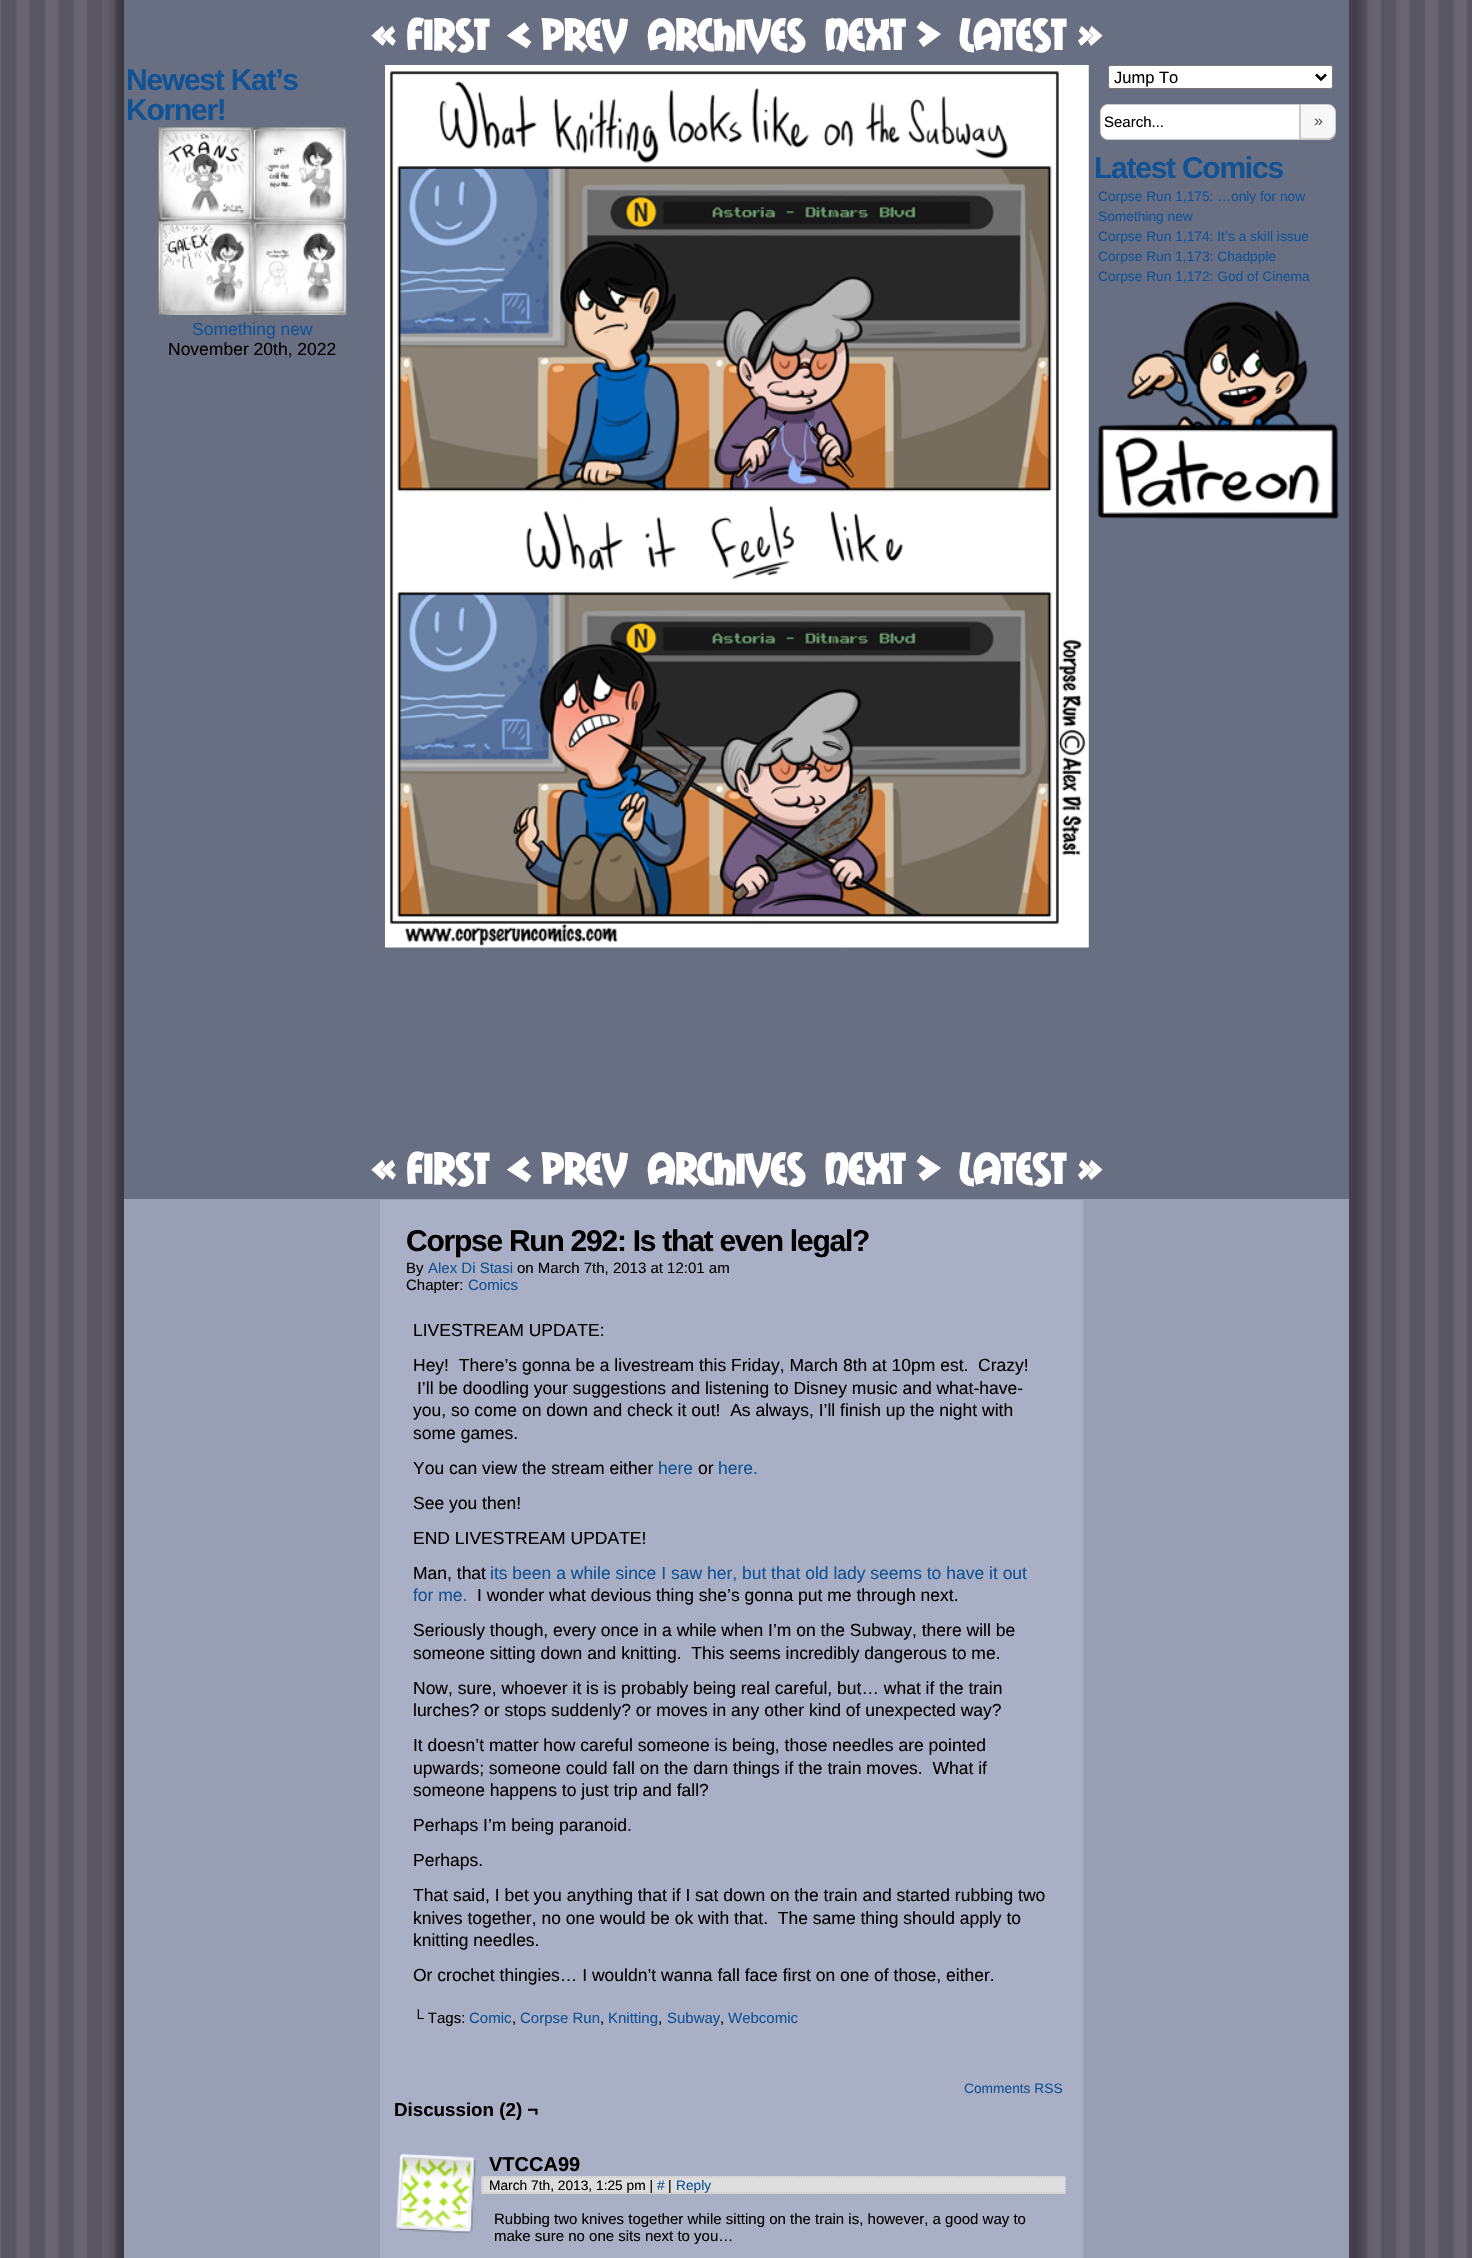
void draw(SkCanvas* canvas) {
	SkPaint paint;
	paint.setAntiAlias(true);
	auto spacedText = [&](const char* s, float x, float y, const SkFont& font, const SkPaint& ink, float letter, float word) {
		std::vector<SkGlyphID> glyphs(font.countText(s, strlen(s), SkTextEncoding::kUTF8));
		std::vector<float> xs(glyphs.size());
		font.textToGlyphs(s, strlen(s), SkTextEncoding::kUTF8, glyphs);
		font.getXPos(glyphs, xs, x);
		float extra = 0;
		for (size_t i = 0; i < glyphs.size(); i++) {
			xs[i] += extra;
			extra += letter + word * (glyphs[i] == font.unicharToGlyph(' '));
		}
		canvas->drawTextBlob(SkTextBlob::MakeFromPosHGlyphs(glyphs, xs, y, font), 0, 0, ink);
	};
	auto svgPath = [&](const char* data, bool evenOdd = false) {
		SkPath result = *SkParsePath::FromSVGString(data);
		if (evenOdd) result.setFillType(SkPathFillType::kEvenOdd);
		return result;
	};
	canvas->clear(0xffffffff);
	canvas->drawImageRect(SkImages::DeferredFromEncodedData(SkData::MakeFromFileName("img1.png")), SkRect::MakeXYWH(0, 0, 1472, 2258), SkSamplingOptions());
	paint.setColor(0x66000000);
	paint.setMaskFilter(SkMaskFilter::MakeBlur(kNormal_SkBlurStyle, 7.5));
	canvas->drawRect(SkRect::MakeXYWH(114, -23, 1245, 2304), paint);
	paint.setMaskFilter(nullptr);
	paint.setColor(0xff696f83);
	canvas->drawRect(SkRect::MakeXYWH(124, 0, 1225, 1199), paint);
	SkFont f1(fontMgr->matchFamilyStyle("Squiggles", SkFontStyle::Bold()), 42.5);
	f1.setSubpixel(true);
	paint.setColor(0xffffffff);
	canvas->drawString("« First", 371, 50, f1, paint);
	canvas->drawString("< Prev", 508, 50, f1, paint);
	canvas->drawString("Archives", 647, 50, f1, paint);
	canvas->drawString("Next >", 825, 50, f1, paint);
	canvas->drawString("Latest »", 959, 50, f1, paint);
	SkFont f2(fontMgr->matchFamilyStyle("Liberation Sans", SkFontStyle::Bold()), 30);
	f2.setSubpixel(true);
	paint.setColor(0xff115294);
	spacedText("Newest Kat’s", 126, 90, f2, paint, -1.25, 0);
	spacedText("Korner!", 126, 120, f2, paint, -1.25, 0);
	canvas->drawImageRect(SkImages::DeferredFromEncodedData(SkData::MakeFromFileName("img2.png")), SkRect::MakeXYWH(158, 127, 189, 188), SkSamplingOptions());
	SkFont f3(fontMgr->matchFamilyStyle("Liberation Sans", SkFontStyle::Normal()), 17.5);
	f3.setSubpixel(true);
	canvas->drawString("Something new", 192, 335, f3, paint);
	paint.setColor(0xff000000);
	canvas->drawString("November 20th, 2022", 168, 355, f3, paint);
	canvas->drawImageRect(SkImages::DeferredFromEncodedData(SkData::MakeFromFileName("img3.png")), SkRect::MakeXYWH(385, 65, 704, 883), SkSamplingOptions());
	paint.setColor(0xffffffff);
	canvas->drawRoundRect(SkRect::MakeXYWH(1108.5, 65.5, 224, 23), 2, 2, paint);
	paint.setStroke(true);
	paint.setStrokeWidth(1);
	paint.setColor(0xff767676);
	canvas->drawRoundRect(SkRect::MakeXYWH(1108.5, 65.5, 224, 23), 2, 2, paint);
	paint.setStrokeWidth(2.5);
	paint.setColor(0xff000000);
	canvas->drawPath(svgPath("M1316 74.5L1321 79.5L1326 74.5"), paint);
	SkFont f4(fontMgr->matchFamilyStyle("Liberation Sans", SkFontStyle::Normal()), 16.5);
	f4.setSubpixel(true);
	paint.setStroke(false);
	canvas->drawString("Jump To", 1114, 83, f4, paint);
	paint.setColor(0xffffffff);
	canvas->drawPath(svgPath("M1108 104.5H1299.5V139.5H1108C1104 139.5 1100.5 136 1100.5 132V112C1100.5 108 1104 104.5 1108 104.5Z"), paint);
	paint.setStroke(true);
	paint.setStrokeWidth(1);
	paint.setColor(0xffcccccc);
	canvas->drawPath(svgPath("M1108 104.5H1299.5V139.5H1108C1104 139.5 1100.5 136 1100.5 132V112C1100.5 108 1104 104.5 1108 104.5Z"), paint);
	SkFont f5(fontMgr->matchFamilyStyle("Liberation Sans", SkFontStyle::Normal()), 15);
	f5.setSubpixel(true);
	paint.setStroke(false);
	paint.setColor(0xff000000);
	canvas->drawString("Search...", 1104, 127, f5, paint);
	paint.setColor(0xffcccccc);
	canvas->drawPath(svgPath("M1300 139V140H1328C1332 140 1335 137.5 1336 134C1334.5 136.5 1332 139 1329 139Z"), paint);
	paint.setColor(0xfff7f7f7);
	canvas->drawPath(svgPath("M1300.5 104.5H1328C1332 104.5 1335.5 108 1335.5 112V131C1335.5 135 1332 138.5 1328 138.5H1300.5Z"), paint);
	paint.setStroke(true);
	paint.setColor(0xffcccccc);
	canvas->drawPath(svgPath("M1300.5 104.5H1328C1332 104.5 1335.5 108 1335.5 112V131C1335.5 135 1332 138.5 1328 138.5H1300.5Z"), paint);
	SkFont f6(fontMgr->matchFamilyStyle("Liberation Sans", SkFontStyle::Normal()), 16);
	f6.setSubpixel(true);
	paint.setStroke(false);
	paint.setColor(0xff555555);
	canvas->drawString("»", 1314, 126, f6, paint);
	paint.setColor(0xff115294);
	spacedText("Latest Comics", 1094, 178, f2, paint, -1.25, 0);
	SkFont f7(fontMgr->matchFamilyStyle("Liberation Sans", SkFontStyle::Normal()), 13.75);
	f7.setSubpixel(true);
	canvas->drawString("Corpse Run 1,175: …only for now", 1098, 201, f7, paint);
	canvas->drawString("Something new", 1098, 221, f7, paint);
	canvas->drawString("Corpse Run 1,174: It’s a skill issue", 1098, 241, f7, paint);
	canvas->drawString("Corpse Run 1,173: Chadpple", 1098, 261, f7, paint);
	canvas->drawString("Corpse Run 1,172: God of Cinema", 1098, 281, f7, paint);
	canvas->drawImageRect(SkImages::DeferredFromEncodedData(SkData::MakeFromFileName("img4.png")), SkRect::MakeXYWH(1097, 301, 242, 218), SkSamplingOptions());
	paint.setColor(0xffffffff);
	canvas->drawString("« First", 371, 1184, f1, paint);
	canvas->drawString("< Prev", 508, 1184, f1, paint);
	canvas->drawString("Archives", 647, 1184, f1, paint);
	canvas->drawString("Next >", 825, 1184, f1, paint);
	canvas->drawString("Latest »", 959, 1184, f1, paint);
	paint.setColor(0xff999fb5);
	canvas->drawRect(SkRect::MakeXYWH(124, 1199, 1225, 1059), paint);
	paint.setColor(0xffa9afc5);
	canvas->drawRect(SkRect::MakeXYWH(380, 1200, 703, 1058), paint);
	paint.setColor(0xff000000);
	spacedText("Corpse Run 292: Is that even legal?", 406, 1251, f2, paint, -1.25, 0);
	canvas->drawString("By", 406, 1273, f5, paint);
	paint.setColor(0xff115294);
	canvas->drawString("Alex Di Stasi", 428, 1273, f5, paint);
	paint.setColor(0xff000000);
	canvas->drawString("on March 7th, 2013 at 12:01 am", 517, 1273, f5, paint);
	canvas->drawString("Chapter:", 406, 1290, f5, paint);
	paint.setColor(0xff115294);
	canvas->drawString("Comics", 468, 1290, f5, paint);
	paint.setColor(0xff000000);
	canvas->drawString("LIVESTREAM UPDATE:", 413, 1336, f3, paint);
	canvas->drawString("Hey!  There’s gonna be a livestream this Friday, March 8th at 10pm est.  Crazy!", 413, 1371, f3, paint);
	canvas->drawString("I’ll be doodling your suggestions and listening to Disney music and what-have-", 417, 1394, f3, paint);
	canvas->drawString("you, so come on down and check it out!  As always, I’ll finish up the night with", 413, 1416, f3, paint);
	canvas->drawString("some games.", 413, 1439, f3, paint);
	canvas->drawString("You can view the stream either", 413, 1474, f3, paint);
	paint.setColor(0xff115294);
	canvas->drawString("here", 658, 1474, f3, paint);
	paint.setColor(0xff000000);
	canvas->drawString("or", 698, 1474, f3, paint);
	paint.setColor(0xff115294);
	canvas->drawString("here.", 718, 1474, f3, paint);
	paint.setColor(0xff000000);
	canvas->drawString("See you then!", 413, 1509, f3, paint);
	canvas->drawString("END LIVESTREAM UPDATE!", 413, 1544, f3, paint);
	canvas->drawString("Man, that", 413, 1579, f3, paint);
	paint.setColor(0xff115294);
	canvas->drawString("its been a while since I saw her, but that old lady seems to have it out", 490, 1579, f3, paint);
	canvas->drawString("for me.", 413, 1601, f3, paint);
	paint.setColor(0xff000000);
	canvas->drawString("I wonder what devious thing she’s gonna put me through next.", 477, 1601, f3, paint);
	canvas->drawString("Seriously though, every once in a while when I’m on the Subway, there will be", 413, 1636, f3, paint);
	canvas->drawString("someone sitting down and knitting.  This seems incredibly dangerous to me.", 413, 1659, f3, paint);
	canvas->drawString("Now, sure, whoever it is is probably being real careful, but… what if the train", 413, 1694, f3, paint);
	canvas->drawString("lurches? or stops suddenly? or moves in any other kind of unexpected way?", 413, 1716, f3, paint);
	canvas->drawString("It doesn’t matter how careful someone is being, those needles are pointed", 413, 1751, f3, paint);
	canvas->drawString("upwards; someone could fall on the darn things if the train moves.  What if", 413, 1774, f3, paint);
	canvas->drawString("someone happens to just trip and fall?", 413, 1796, f3, paint);
	canvas->drawString("Perhaps I’m being paranoid.", 413, 1831, f3, paint);
	canvas->drawString("Perhaps.", 413, 1866, f3, paint);
	canvas->drawString("That said, I bet you anything that if I sat down on the train and started rubbing two", 413, 1901, f3, paint);
	canvas->drawString("knives together, no one would be ok with that.  The same thing should apply to", 413, 1924, f3, paint);
	canvas->drawString("knitting needles.", 413, 1946, f3, paint);
	canvas->drawString("Or crochet thingies… I wouldn’t wanna fall face first on one of those, either.", 413, 1981, f3, paint);
	canvas->drawString("└ Tags:", 413, 2023, f5, paint);
	paint.setColor(0xff115294);
	canvas->drawString("Comic", 469, 2023, f5, paint);
	paint.setColor(0xff000000);
	canvas->drawString(",", 512, 2023, f5, paint);
	paint.setColor(0xff115294);
	canvas->drawString("Corpse Run", 520, 2023, f5, paint);
	paint.setColor(0xff000000);
	canvas->drawString(",", 600, 2023, f5, paint);
	paint.setColor(0xff115294);
	canvas->drawString("Knitting", 608, 2023, f5, paint);
	paint.setColor(0xff000000);
	canvas->drawString(",", 658, 2023, f5, paint);
	paint.setColor(0xff115294);
	canvas->drawString("Subway", 667, 2023, f5, paint);
	paint.setColor(0xff000000);
	canvas->drawString(",", 720, 2023, f5, paint);
	paint.setColor(0xff115294);
	canvas->drawString("Webcomic", 728, 2023, f5, paint);
	canvas->drawString("Comments RSS", 964, 2093, f7, paint);
	SkFont f8(fontMgr->matchFamilyStyle("Liberation Sans", SkFontStyle::Bold()), 18.75);
	f8.setSubpixel(true);
	paint.setColor(0xff000000);
	canvas->drawString("Discussion (2) ¬", 394, 2116, f8, paint);
	canvas->drawImageRect(SkImages::DeferredFromEncodedData(SkData::MakeFromFileName("img5.png")), SkRect::MakeXYWH(396, 2153, 81, 81), SkSamplingOptions());
	SkFont f9(fontMgr->matchFamilyStyle("Liberation Sans", SkFontStyle::Bold()), 20);
	f9.setSubpixel(true);
	canvas->drawString("VTCCA99", 489, 2171, f9, paint);
	paint.setColor(0xffdddddd);
	canvas->drawRect(SkRect::MakeXYWH(481, 2176, 585, 18), paint);
	paint.setStroke(true);
	paint.setStrokeWidth(1.2);
	paint.setColor(0xffbbbbbb);
	paint.setPathEffect(SkDashPathEffect::Make({{1.25f, 1.25f}}, 0));
	canvas->drawPath(svgPath("M481 2177H1066"), paint);
	paint.setPathEffect(nullptr);
	paint.setPathEffect(SkDashPathEffect::Make({{1.25f, 1.25f}}, 0));
	canvas->drawPath(svgPath("M1065.5 2176V2194"), paint);
	paint.setPathEffect(nullptr);
	paint.setPathEffect(SkDashPathEffect::Make({{1.25f, 1.25f}}, 0));
	canvas->drawPath(svgPath("M481 2193H1066"), paint);
	paint.setPathEffect(nullptr);
	paint.setPathEffect(SkDashPathEffect::Make({{1.25f, 1.25f}}, 0));
	canvas->drawPath(svgPath("M482 2176V2194"), paint);
	paint.setPathEffect(nullptr);
	paint.setStroke(false);
	paint.setColor(0xff000000);
	canvas->drawString("March 7th, 2013, 1:25 pm |", 489, 2190, f7, paint);
	paint.setColor(0xff115294);
	canvas->drawString("#", 657, 2190, f7, paint);
	paint.setColor(0xff000000);
	canvas->drawString("|", 668, 2190, f7, paint);
	paint.setColor(0xff115294);
	canvas->drawString("Reply", 676, 2190, f7, paint);
	paint.setColor(0xff000000);
	canvas->drawString("Rubbing two knives together while sitting on the train is, however, a good way to", 494, 2224, f5, paint);
	canvas->drawString("make sure no one sits next to you…", 494, 2241, f5, paint);
}
